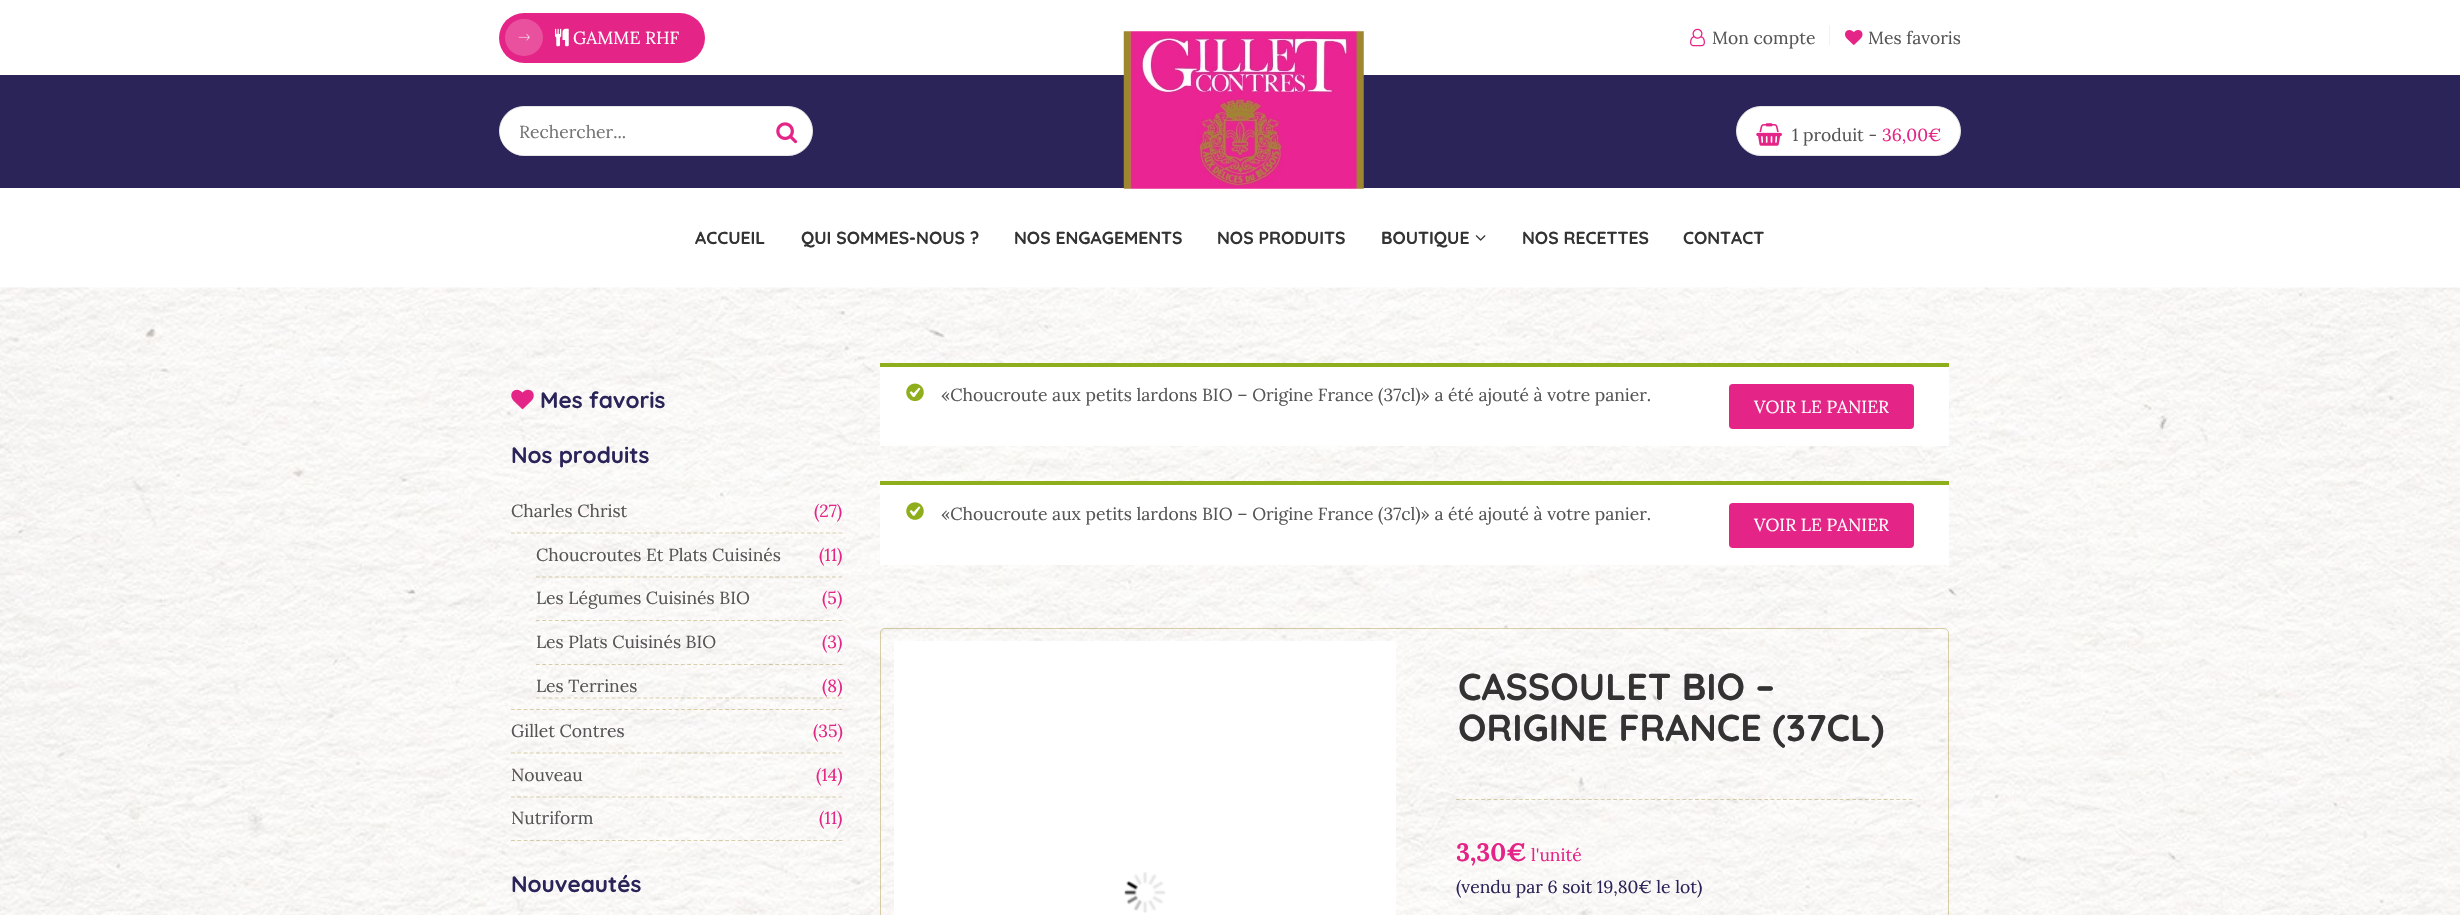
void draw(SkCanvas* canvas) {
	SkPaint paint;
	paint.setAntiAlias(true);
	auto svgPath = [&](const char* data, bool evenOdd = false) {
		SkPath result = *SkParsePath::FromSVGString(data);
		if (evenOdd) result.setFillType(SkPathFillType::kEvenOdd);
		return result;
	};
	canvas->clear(0xffffffff);
	paint.setColor(0xffe42486);
	canvas->drawRoundRect(SkRect::MakeXYWH(499, 13, 206, 50), 25, 25, paint);
	paint.setColor(0xffe9509e);
	canvas->drawRoundRect(SkRect::MakeXYWH(505, 19, 38, 37), 18.5, 18.5, paint);
	canvas->drawImageRect(SkImages::DeferredFromEncodedData(SkData::MakeFromFileName("img1.png")), SkRect::MakeXYWH(518, 33, 12, 8), SkSamplingOptions());
	canvas->drawImageRect(SkImages::DeferredFromEncodedData(SkData::MakeFromFileName("img2.png")), SkRect::MakeXYWH(555, 28, 14, 19), SkSamplingOptions());
	SkFont f1(fontMgr->matchFamilyStyle("Lora", SkFontStyle::Normal()), 17.5);
	f1.setSubpixel(true);
	paint.setColor(0xffffffff);
	canvas->drawString("GAMME RHF", 573, 44, f1, paint);
	canvas->drawImageRect(SkImages::DeferredFromEncodedData(SkData::MakeFromFileName("img3.png")), SkRect::MakeXYWH(1690, 28, 15, 19), SkSamplingOptions());
	paint.setColor(0xff555555);
	canvas->drawString("Mon compte", 1712, 44, f1, paint);
	paint.setColor(0xfff1f1f1);
	canvas->drawRect(SkRect::MakeXYWH(1829, 25, 1, 20), paint);
	canvas->drawImageRect(SkImages::DeferredFromEncodedData(SkData::MakeFromFileName("img4.png")), SkRect::MakeXYWH(1845, 30, 18, 15), SkSamplingOptions());
	paint.setColor(0xff555555);
	canvas->drawString("Mes favoris", 1868, 44, f1, paint);
	paint.setColor(0xff2a2458);
	canvas->drawRect(SkRect::MakeXYWH(0, 75, 2460, 113), paint);
	paint.setColor(0xffffffff);
	canvas->drawRoundRect(SkRect::MakeXYWH(499.5, 106.5, 313, 49), 24.5, 24.5, paint);
	paint.setStroke(true);
	paint.setStrokeWidth(1);
	paint.setColor(0xffe5e5e5);
	canvas->drawRoundRect(SkRect::MakeXYWH(499.5, 106.5, 313, 49), 24.5, 24.5, paint);
	paint.setStroke(false);
	paint.setColor(0xffffffff);
	canvas->drawRoundRect(SkRect::MakeXYWH(500, 108, 261, 47), 23.5, 23.5, paint);
	paint.setColor(0xff757575);
	canvas->drawString("Rechercher...", 519, 138, f1, paint);
	canvas->drawImageRect(SkImages::DeferredFromEncodedData(SkData::MakeFromFileName("img5.png")), SkRect::MakeXYWH(776, 122, 22, 22), SkSamplingOptions());
	canvas->drawImageRect(SkImages::DeferredFromEncodedData(SkData::MakeFromFileName("img6.png")), SkRect::MakeXYWH(1123, 31, 241, 158), SkSamplingOptions());
	paint.setColor(0xffffffff);
	canvas->drawRoundRect(SkRect::MakeXYWH(1736.5, 106.5, 224, 49), 24.5, 24.5, paint);
	paint.setStroke(true);
	paint.setColor(0xffe5e5e5);
	canvas->drawRoundRect(SkRect::MakeXYWH(1736.5, 106.5, 224, 49), 24.5, 24.5, paint);
	canvas->drawImageRect(SkImages::DeferredFromEncodedData(SkData::MakeFromFileName("img7.png")), SkRect::MakeXYWH(1756, 123, 26, 23), SkSamplingOptions());
	paint.setStroke(false);
	paint.setColor(0xff555555);
	canvas->drawString("1 produit -", 1792, 141, f1, paint);
	paint.setColor(0xffe42486);
	canvas->drawString("36,00€", 1882, 141, f1, paint);
	SkFont f2(fontMgr->matchFamilyStyle("Quicksand", SkFontStyle::Bold()), 17.5);
	f2.setSubpixel(true);
	paint.setColor(0xff333333);
	canvas->drawString("ACCUEIL", 695, 244, f2, paint);
	canvas->drawString("QUI SOMMES-NOUS ?", 801, 244, f2, paint);
	canvas->drawString("NOS ENGAGEMENTS", 1014, 244, f2, paint);
	canvas->drawString("NOS PRODUITS", 1217, 244, f2, paint);
	canvas->drawString("BOUTIQUE", 1381, 244, f2, paint);
	canvas->drawImageRect(SkImages::DeferredFromEncodedData(SkData::MakeFromFileName("img8.png")), SkRect::MakeXYWH(1475, 235, 11, 6), SkSamplingOptions());
	canvas->drawString("NOS RECETTES", 1522, 244, f2, paint);
	canvas->drawString("CONTACT", 1683, 244, f2, paint);
	canvas->drawImageRect(SkImages::DeferredFromEncodedData(SkData::MakeFromFileName("img9.png")), SkRect::MakeXYWH(0, 287, 2460, 628), SkSamplingOptions());
	canvas->drawImageRect(SkImages::DeferredFromEncodedData(SkData::MakeFromFileName("img10.png")), SkRect::MakeXYWH(511, 389, 23, 21), SkSamplingOptions());
	SkFont f3(fontMgr->matchFamilyStyle("Quicksand", SkFontStyle::Bold()), 22.5);
	f3.setSubpixel(true);
	paint.setColor(0xff2a2458);
	canvas->drawString("Mes favoris", 540, 408, f3, paint);
	canvas->drawString("Nos produits", 511, 463, f3, paint);
	paint.setStroke(true);
	paint.setStrokeWidth(1.2);
	paint.setColor(0x669f8b30);
	paint.setPathEffect(SkDashPathEffect::Make({{3.75f, 2.55f}}, 0));
	canvas->drawPath(svgPath("M511 709.5H842.5"), paint);
	paint.setPathEffect(nullptr);
	paint.setStroke(false);
	paint.setColor(0xff555555);
	canvas->drawString("Charles Christ", 511, 517, f1, paint);
	paint.setColor(0xffe42486);
	canvas->drawString("(27)", 814, 517, f1, paint);
	paint.setStroke(true);
	paint.setColor(0x669f8b30);
	paint.setPathEffect(SkDashPathEffect::Make({{3.75f, 2.55f}}, 0));
	canvas->drawPath(svgPath("M511 533H842.5"), paint);
	paint.setPathEffect(nullptr);
	paint.setPathEffect(SkDashPathEffect::Make({{3.75f, 2.55f}}, 0));
	canvas->drawPath(svgPath("M536 577H842.5"), paint);
	paint.setPathEffect(nullptr);
	paint.setStroke(false);
	paint.setColor(0xff555555);
	canvas->drawString("Choucroutes Et Plats Cuisinés", 536, 561, f1, paint);
	paint.setColor(0xffe42486);
	canvas->drawString("(11)", 819, 561, f1, paint);
	paint.setStroke(true);
	paint.setColor(0x669f8b30);
	paint.setPathEffect(SkDashPathEffect::Make({{3.75f, 2.55f}}, 0));
	canvas->drawPath(svgPath("M536 620.5H842.5"), paint);
	paint.setPathEffect(nullptr);
	paint.setStroke(false);
	paint.setColor(0xff555555);
	canvas->drawString("Les Légumes Cuisinés BIO", 536, 604, f1, paint);
	paint.setColor(0xffe42486);
	canvas->drawString("(5)", 822, 604, f1, paint);
	paint.setStroke(true);
	paint.setColor(0x669f8b30);
	paint.setPathEffect(SkDashPathEffect::Make({{3.75f, 2.55f}}, 0));
	canvas->drawPath(svgPath("M536 664.5H842.5"), paint);
	paint.setPathEffect(nullptr);
	paint.setStroke(false);
	paint.setColor(0xff555555);
	canvas->drawString("Les Plats Cuisinés BIO", 536, 648, f1, paint);
	paint.setColor(0xffe42486);
	canvas->drawString("(3)", 822, 648, f1, paint);
	paint.setStroke(true);
	paint.setColor(0x669f8b30);
	paint.setPathEffect(SkDashPathEffect::Make({{3.75f, 2.55f}}, 0));
	canvas->drawPath(svgPath("M536 698H842.5"), paint);
	paint.setPathEffect(nullptr);
	paint.setStroke(false);
	paint.setColor(0xff555555);
	canvas->drawString("Les Terrines", 536, 692, f1, paint);
	paint.setColor(0xffe42486);
	canvas->drawString("(8)", 822, 692, f1, paint);
	paint.setStroke(true);
	paint.setColor(0x669f8b30);
	paint.setPathEffect(SkDashPathEffect::Make({{3.75f, 2.55f}}, 0));
	canvas->drawPath(svgPath("M511 753H842.5"), paint);
	paint.setPathEffect(nullptr);
	paint.setStroke(false);
	paint.setColor(0xff555555);
	canvas->drawString("Gillet Contres", 511, 737, f1, paint);
	paint.setColor(0xffe42486);
	canvas->drawString("(35)", 813, 737, f1, paint);
	paint.setStroke(true);
	paint.setColor(0x669f8b30);
	paint.setPathEffect(SkDashPathEffect::Make({{3.75f, 2.55f}}, 0));
	canvas->drawPath(svgPath("M511 797H842.5"), paint);
	paint.setPathEffect(nullptr);
	paint.setStroke(false);
	paint.setColor(0xff555555);
	canvas->drawString("Nouveau", 511, 781, f1, paint);
	paint.setColor(0xffe42486);
	canvas->drawString("(14)", 816, 781, f1, paint);
	paint.setStroke(true);
	paint.setColor(0x669f8b30);
	paint.setPathEffect(SkDashPathEffect::Make({{3.75f, 2.55f}}, 0));
	canvas->drawPath(svgPath("M511 840.5H842.5"), paint);
	paint.setPathEffect(nullptr);
	paint.setStroke(false);
	paint.setColor(0xff555555);
	canvas->drawString("Nutriform", 511, 824, f1, paint);
	paint.setColor(0xffe42486);
	canvas->drawString("(11)", 819, 824, f1, paint);
	paint.setColor(0xff2a2458);
	canvas->drawString("Nouveautés", 511, 892, f3, paint);
	paint.setColor(0xffffffff);
	canvas->drawRect(SkRect::MakeXYWH(880, 367, 1069, 79), paint);
	paint.setColor(0xff8fae1b);
	canvas->drawRect(SkRect::MakeXYWH(880, 363, 1069, 4), paint);
	canvas->drawImageRect(SkImages::DeferredFromEncodedData(SkData::MakeFromFileName("img11.png")), SkRect::MakeXYWH(906, 383, 18, 19), SkSamplingOptions());
	paint.setColor(0xff555555);
	canvas->drawString("«Choucroute aux petits lardons BIO – Origine France (37cl)» a été ajouté à votre panier.", 941, 401, f1, paint);
	paint.setColor(0xffe42486);
	canvas->drawRoundRect(SkRect::MakeXYWH(1729, 384, 185, 45), 4, 4, paint);
	paint.setColor(0xffffffff);
	canvas->drawString("VOIR LE PANIER", 1754, 413, f1, paint);
	canvas->drawRect(SkRect::MakeXYWH(880, 485, 1069, 80), paint);
	paint.setColor(0xff8fae1b);
	canvas->drawRect(SkRect::MakeXYWH(880, 481, 1069, 4), paint);
	canvas->drawImageRect(SkImages::DeferredFromEncodedData(SkData::MakeFromFileName("img12.png")), SkRect::MakeXYWH(906, 502, 18, 18), SkSamplingOptions());
	paint.setColor(0xff555555);
	canvas->drawString("«Choucroute aux petits lardons BIO – Origine France (37cl)» a été ajouté à votre panier.", 941, 520, f1, paint);
	paint.setColor(0xffe42486);
	canvas->drawRoundRect(SkRect::MakeXYWH(1729, 503, 185, 45), 4, 4, paint);
	paint.setColor(0xffffffff);
	canvas->drawString("VOIR LE PANIER", 1754, 531, f1, paint);
	paint.setStroke(true);
	paint.setStrokeWidth(1);
	paint.setColor(0x669f8b30);
	canvas->drawRoundRect(SkRect::MakeXYWH(880.5, 628.5, 1068, 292), 4.5, 4.5, paint);
	paint.setStroke(false);
	paint.setColor(0xffffffff);
	canvas->drawRect(SkRect::MakeXYWH(894, 641, 502, 274), paint);
	canvas->drawImageRect(SkImages::DeferredFromEncodedData(SkData::MakeFromFileName("img13.png")), SkRect::MakeXYWH(1124, 872, 42, 41), SkSamplingOptions());
	SkFont f4(fontMgr->matchFamilyStyle("Quicksand", SkFontStyle::Bold()), 37.5);
	f4.setSubpixel(true);
	paint.setColor(0xff333333);
	canvas->drawString("CASSOULET BIO –", 1458, 700, f4, paint);
	canvas->drawString("ORIGINE FRANCE (37CL)", 1458, 741, f4, paint);
	paint.setStroke(true);
	paint.setStrokeWidth(1.2);
	paint.setColor(0x669f8b30);
	paint.setPathEffect(SkDashPathEffect::Make({{3.75f, 2.54f}}, 0));
	canvas->drawPath(svgPath("M1456 799.5H1912.5"), paint);
	paint.setPathEffect(nullptr);
	SkFont f5(fontMgr->matchFamilyStyle("Lora", SkFontStyle::Bold()), 25);
	f5.setSubpixel(true);
	paint.setStroke(false);
	paint.setColor(0xffe42486);
	canvas->drawString("3,30€", 1456, 861, f5, paint);
	canvas->drawString("l'unité", 1531, 861, f1, paint);
	paint.setColor(0xff2a2458);
	canvas->drawString("(vendu par 6 soit 19,80€ le lot)", 1456, 893, f1, paint);
}
